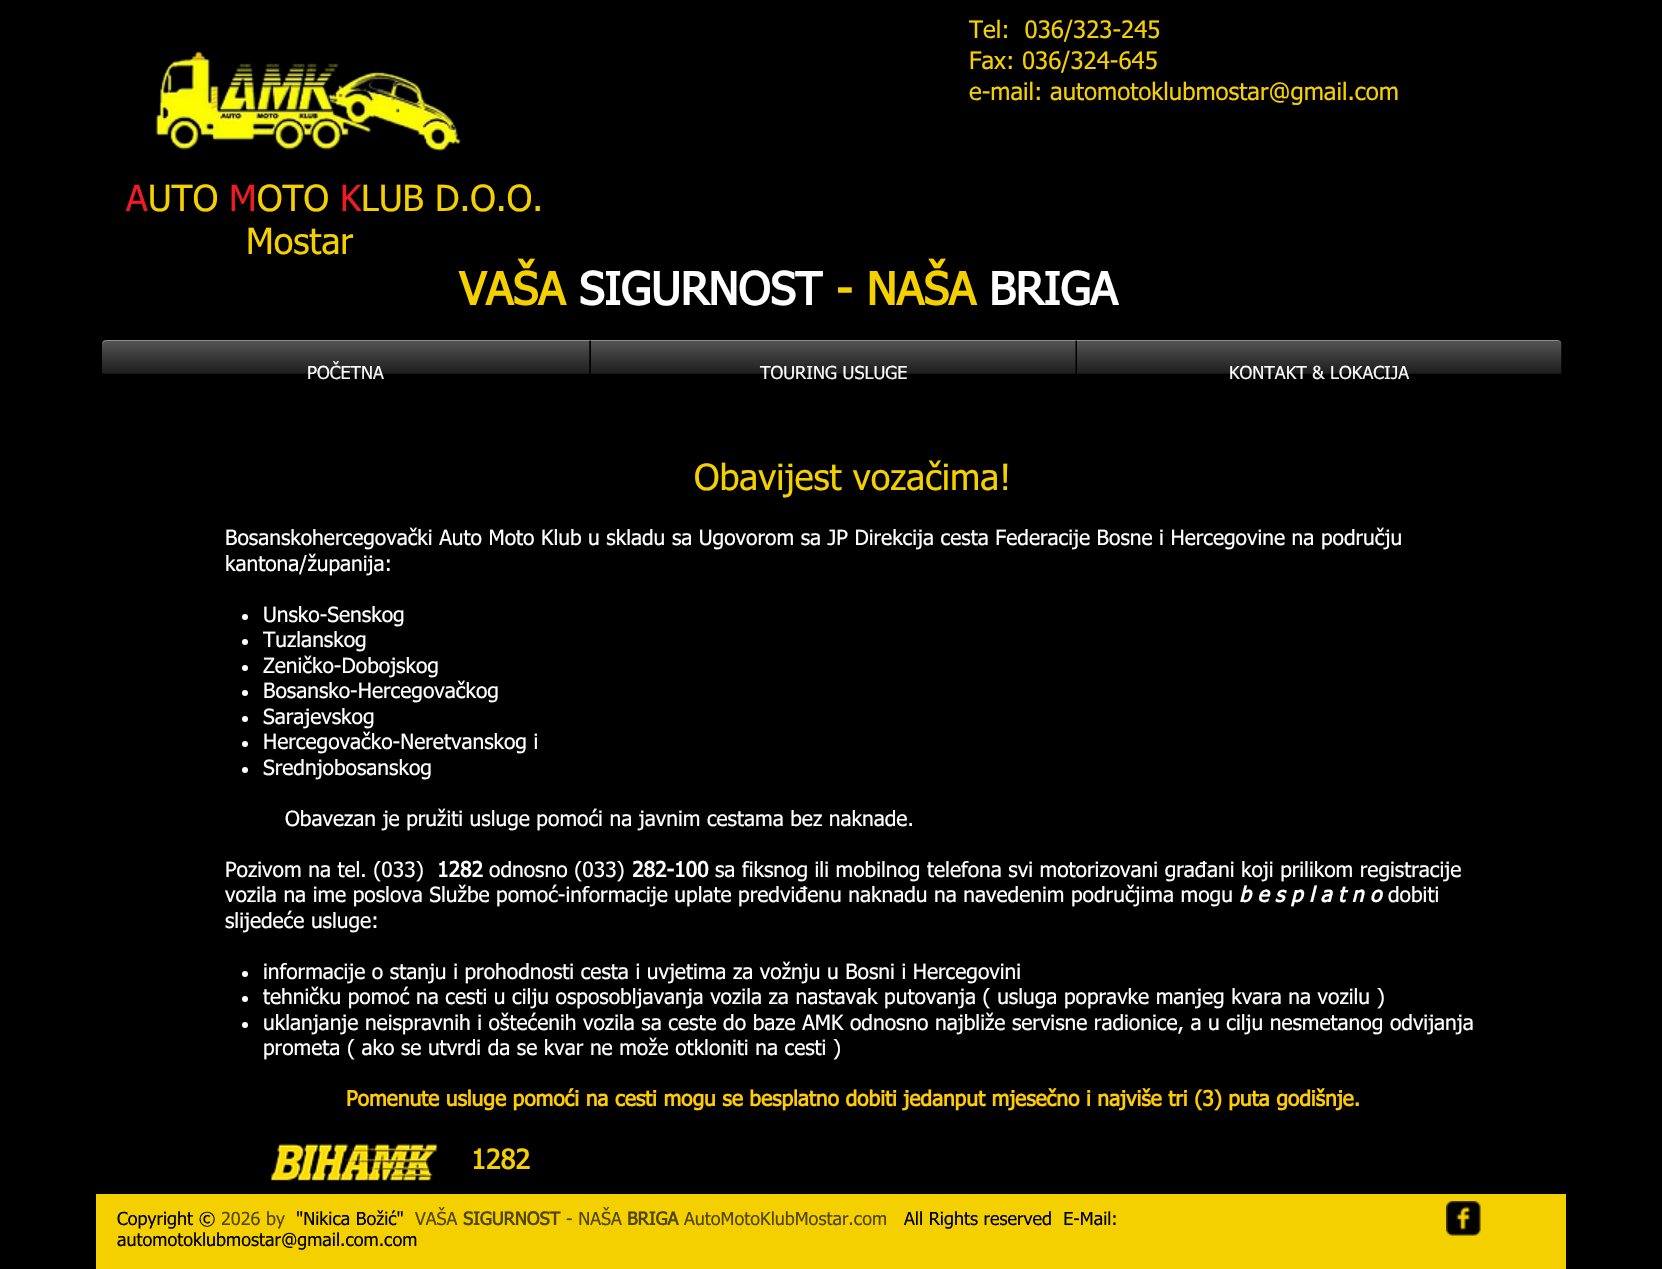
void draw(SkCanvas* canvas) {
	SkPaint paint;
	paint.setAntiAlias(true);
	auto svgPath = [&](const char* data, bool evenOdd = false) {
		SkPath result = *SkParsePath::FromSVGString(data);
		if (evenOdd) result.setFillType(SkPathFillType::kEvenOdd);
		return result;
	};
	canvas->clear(0xff000000);
	canvas->drawImageRect(SkImages::DeferredFromEncodedData(SkData::MakeFromFileName("img1.png")), SkRect::MakeXYWH(155, 51, 306, 101), SkSamplingOptions());
	SkFont f1(fontMgr->matchFamilyStyle("tahoma", SkFontStyle::Normal()), 24);
	f1.setSubpixel(true);
	paint.setColor(0xfff5d000);
	canvas->drawString("Tel:  036/323-245", 969, 38, f1, paint);
	canvas->drawString("Fax: 036/324-645", 969, 69, f1, paint);
	canvas->drawString("e-mail: automotoklubmostar@gmail.com", 969, 100, f1, paint);
	SkFont f2(fontMgr->matchFamilyStyle("tahoma", SkFontStyle::Normal()), 36);
	f2.setSubpixel(true);
	paint.setColor(0xffed1c24);
	canvas->drawString("A", 126, 211, f2, paint);
	paint.setColor(0xfff5d000);
	canvas->drawString("UTO", 148, 211, f2, paint);
	paint.setColor(0xffed1c24);
	canvas->drawString("M", 229, 211, f2, paint);
	paint.setColor(0xfff5d000);
	canvas->drawString("OTO", 257, 211, f2, paint);
	paint.setColor(0xffed1c24);
	canvas->drawString("K", 340, 211, f2, paint);
	paint.setColor(0xfff5d000);
	canvas->drawString("LUB D.O.O.", 361, 211, f2, paint);
	canvas->drawString("Mostar", 246, 254, f2, paint);
	SkFont f3(fontMgr->matchFamilyStyle("tahoma", SkFontStyle::Bold()), 45);
	f3.setSubpixel(true);
	canvas->drawString("VAŠA", 459, 305, f3, paint);
	paint.setColor(0xffffffff);
	canvas->drawString("SIGURNOST", 579, 305, f3, paint);
	paint.setColor(0xfff5d000);
	canvas->drawString("- NAŠA", 836, 305, f3, paint);
	paint.setColor(0xffffffff);
	canvas->drawString("BRIGA", 989, 305, f3, paint);
	canvas->drawImageRect(SkImages::DeferredFromEncodedData(SkData::MakeFromFileName("img2.png")), SkRect::MakeXYWH(102, 340, 1460, 6), SkSamplingOptions());
	paint.setColor(0xff000000);
	canvas->drawPath(svgPath("M107 341H590V408H102V346C102 343 104 341 107 341Z"), paint);
	SkFont f4(fontMgr->matchFamilyStyle("tahoma", SkFontStyle::Normal()), 18);
	f4.setSubpixel(true);
	paint.setColor(0xffffffff);
	canvas->drawString("POČETNA", 307, 379, f4, paint);
	canvas->drawImageRect(SkImages::DeferredFromEncodedData(SkData::MakeFromFileName("img3.png")), SkRect::MakeXYWH(102, 340, 488, 40), SkSamplingOptions());
	paint.setColor(0xff000000);
	canvas->drawRect(SkRect::MakeXYWH(590, 341, 486, 5), paint);
	paint.setColor(0xffffffff);
	canvas->drawString("TOURING USLUGE", 760, 379, f4, paint);
	canvas->drawImageRect(SkImages::DeferredFromEncodedData(SkData::MakeFromFileName("img4.png")), SkRect::MakeXYWH(591, 340, 485, 40), SkSamplingOptions());
	paint.setColor(0xff000000);
	canvas->drawPath(svgPath("M1076 341H1557C1560 341 1562 343 1562 346V408H1076Z"), paint);
	paint.setColor(0xffffffff);
	canvas->drawString("KONTAKT & LOKACIJA", 1229, 379, f4, paint);
	canvas->drawImageRect(SkImages::DeferredFromEncodedData(SkData::MakeFromFileName("img5.png")), SkRect::MakeXYWH(1077, 340, 485, 40), SkSamplingOptions());
	paint.setColor(0xfff5d000);
	canvas->drawString("Obavijest vozačima!", 694, 490, f2, paint);
	SkFont f5(fontMgr->matchFamilyStyle("tahoma", SkFontStyle::Normal()), 21);
	f5.setSubpixel(true);
	paint.setColor(0xffffffff);
	canvas->drawString("Bosanskohercegovački Auto Moto Klub u skladu sa Ugovorom sa JP Direkcija cesta Federacije Bosne i Hercegovine na području", 225, 545, f5, paint);
	canvas->drawString("kantona/županija:", 225, 571, f5, paint);
	canvas->drawCircle(245, 617, 3, paint);
	canvas->drawString("Unsko-Senskog", 263, 622, f5, paint);
	canvas->drawCircle(245, 642, 3, paint);
	canvas->drawString("Tuzlanskog", 263, 647, f5, paint);
	canvas->drawCircle(245, 668, 3, paint);
	canvas->drawString("Zeničko-Dobojskog", 263, 673, f5, paint);
	canvas->drawCircle(245, 693, 3, paint);
	canvas->drawString("Bosansko-Hercegovačkog", 263, 698, f5, paint);
	canvas->drawCircle(245, 719, 3, paint);
	canvas->drawString("Sarajevskog", 263, 724, f5, paint);
	canvas->drawCircle(245, 744, 3, paint);
	canvas->drawString("Hercegovačko-Neretvanskog i", 263, 749, f5, paint);
	canvas->drawCircle(245, 770, 3, paint);
	canvas->drawString("Srednjobosanskog", 263, 775, f5, paint);
	canvas->drawString("Obavezan je pružiti usluge pomoći na javnim cestama bez naknade.", 285, 826, f5, paint);
	canvas->drawString("Pozivom na tel. (033)", 225, 877, f5, paint);
	SkFont f6(fontMgr->matchFamilyStyle("tahoma", SkFontStyle::Bold()), 21);
	f6.setSubpixel(true);
	canvas->drawString("1282", 437, 877, f6, paint);
	canvas->drawString("odnosno (033)", 489, 877, f5, paint);
	canvas->drawString("282-100", 632, 877, f6, paint);
	canvas->drawString("sa fiksnog ili mobilnog telefona svi motorizovani građani koji prilikom registracije", 715, 877, f5, paint);
	canvas->drawString("vozila na ime poslova Službe pomoć-informacije uplate predviđenu naknadu na navedenim područjima mogu", 225, 902, f5, paint);
	SkFont f7(fontMgr->matchFamilyStyle("tahoma", SkFontStyle::BoldItalic()), 21);
	f7.setSubpixel(true);
	canvas->drawString("b e s p l a t n o", 1239, 902, f7, paint);
	canvas->drawString("dobiti", 1388, 902, f5, paint);
	canvas->drawString("slijedeće usluge:", 225, 928, f5, paint);
	canvas->drawCircle(245, 974, 3, paint);
	canvas->drawString("informacije o stanju i prohodnosti cesta i uvjetima za vožnju u Bosni i Hercegovini", 263, 979, f5, paint);
	canvas->drawCircle(245, 999, 3, paint);
	canvas->drawString("tehničku pomoć na cesti u cilju osposobljavanja vozila za nastavak putovanja ( usluga popravke manjeg kvara na vozilu )", 263, 1004, f5, paint);
	canvas->drawCircle(245, 1025, 3, paint);
	canvas->drawString("uklanjanje neispravnih i oštećenih vozila sa ceste do baze AMK odnosno najbliže servisne radionice, a u cilju nesmetanog odvijanja", 263, 1030, f5, paint);
	canvas->drawString("prometa ( ako se utvrdi da se kvar ne može otkloniti na cesti )", 263, 1055, f5, paint);
	paint.setColor(0xffffcb05);
	canvas->drawString("Pomenute usluge pomoći na cesti mogu se besplatno dobiti jedanput mjesečno i najviše tri (3) puta godišnje.", 346, 1106, f6, paint);
	canvas->drawImageRect(SkImages::DeferredFromEncodedData(SkData::MakeFromFileName("img6.png")), SkRect::MakeXYWH(270, 1143, 169, 38), SkSamplingOptions());
	SkFont f8(fontMgr->matchFamilyStyle("tahoma", SkFontStyle::Bold()), 27);
	f8.setSubpixel(true);
	paint.setColor(0xfff5d000);
	canvas->drawString("1282", 471, 1169, f8, paint);
	canvas->drawRect(SkRect::MakeXYWH(96, 1194, 1470, 75), paint);
	paint.setColor(0xff000000);
	canvas->drawString("Copyright ©", 117, 1225, f4, paint);
	paint.setColor(0xff524500);
	canvas->drawString("2026 by", 221, 1225, f4, paint);
	paint.setColor(0xff000000);
	canvas->drawString("\"Nikica Božić\"", 296, 1225, f4, paint);
	paint.setColor(0xff524500);
	canvas->drawString("VAŠA", 415, 1225, f4, paint);
	SkFont f9(fontMgr->matchFamilyStyle("tahoma", SkFontStyle::Bold()), 18);
	f9.setSubpixel(true);
	canvas->drawString("SIGURNOST", 463, 1225, f9, paint);
	canvas->drawString("- NAŠA", 566, 1225, f4, paint);
	canvas->drawString("BRIGA", 627, 1225, f9, paint);
	canvas->drawString("AutoMotoKlubMostar.com", 684, 1225, f4, paint);
	paint.setColor(0xff000000);
	canvas->drawString("All Rights reserved  E-Mail:", 904, 1225, f4, paint);
	canvas->drawString("automotoklubmostar@gmail.com.com", 117, 1246, f4, paint);
	canvas->drawImageRect(SkImages::DeferredFromEncodedData(SkData::MakeFromFileName("img7.png")), SkRect::MakeXYWH(1446, 1201, 35, 35), SkSamplingOptions());
}
